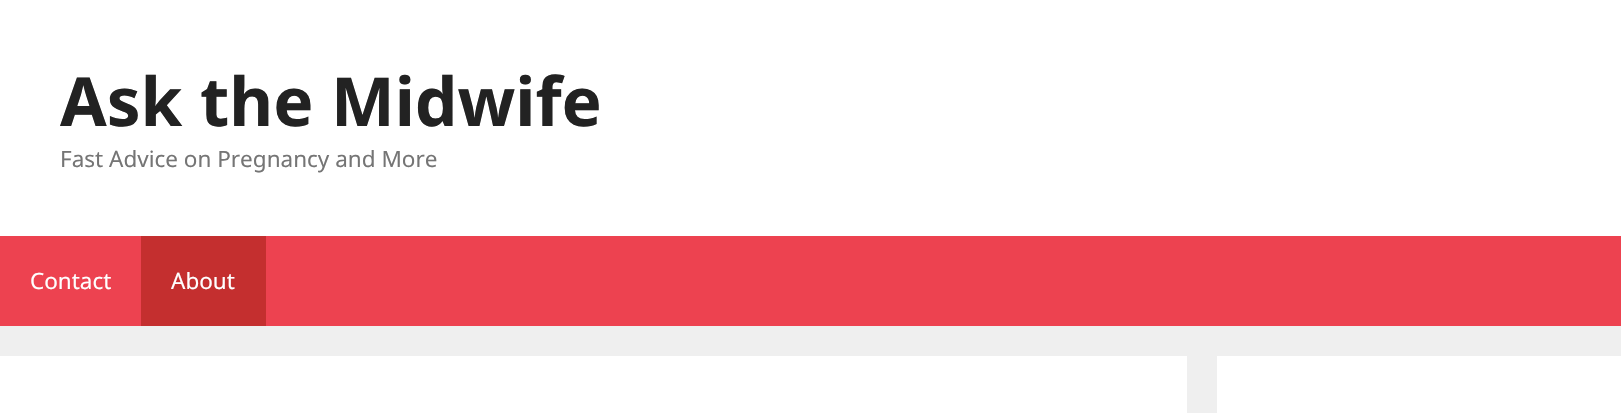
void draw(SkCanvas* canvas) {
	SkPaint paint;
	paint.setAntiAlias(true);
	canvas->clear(0xffefefef);
	paint.setColor(0xffffffff);
	canvas->drawRect(SkRect::MakeXYWH(0, 0, 1621, 236), paint);
	SkFont f1(fontMgr->matchFamilyStyle("Noto Sans", SkFontStyle::Bold()), 67.5);
	f1.setSubpixel(true);
	paint.setColor(0xff222222);
	canvas->drawString("Ask the Midwife", 60, 126, f1, paint);
	SkFont f2(fontMgr->matchFamilyStyle("Noto Sans", SkFontStyle::Normal()), 22.5);
	f2.setSubpixel(true);
	paint.setColor(0xff757575);
	canvas->drawString("Fast Advice on Pregnancy and More", 60, 167, f2, paint);
	paint.setColor(0xffed4250);
	canvas->drawRect(SkRect::MakeXYWH(0, 236, 1621, 90), paint);
	paint.setColor(0xffffffff);
	canvas->drawString("Contact", 30, 289, f2, paint);
	paint.setColor(0xffc42f2f);
	canvas->drawRect(SkRect::MakeXYWH(141, 236, 125, 90), paint);
	paint.setColor(0xffffffff);
	canvas->drawString("About", 171, 289, f2, paint);
	canvas->drawRect(SkRect::MakeXYWH(0, 356, 1187, 57), paint);
	canvas->drawRect(SkRect::MakeXYWH(1217, 356, 404, 57), paint);
}
